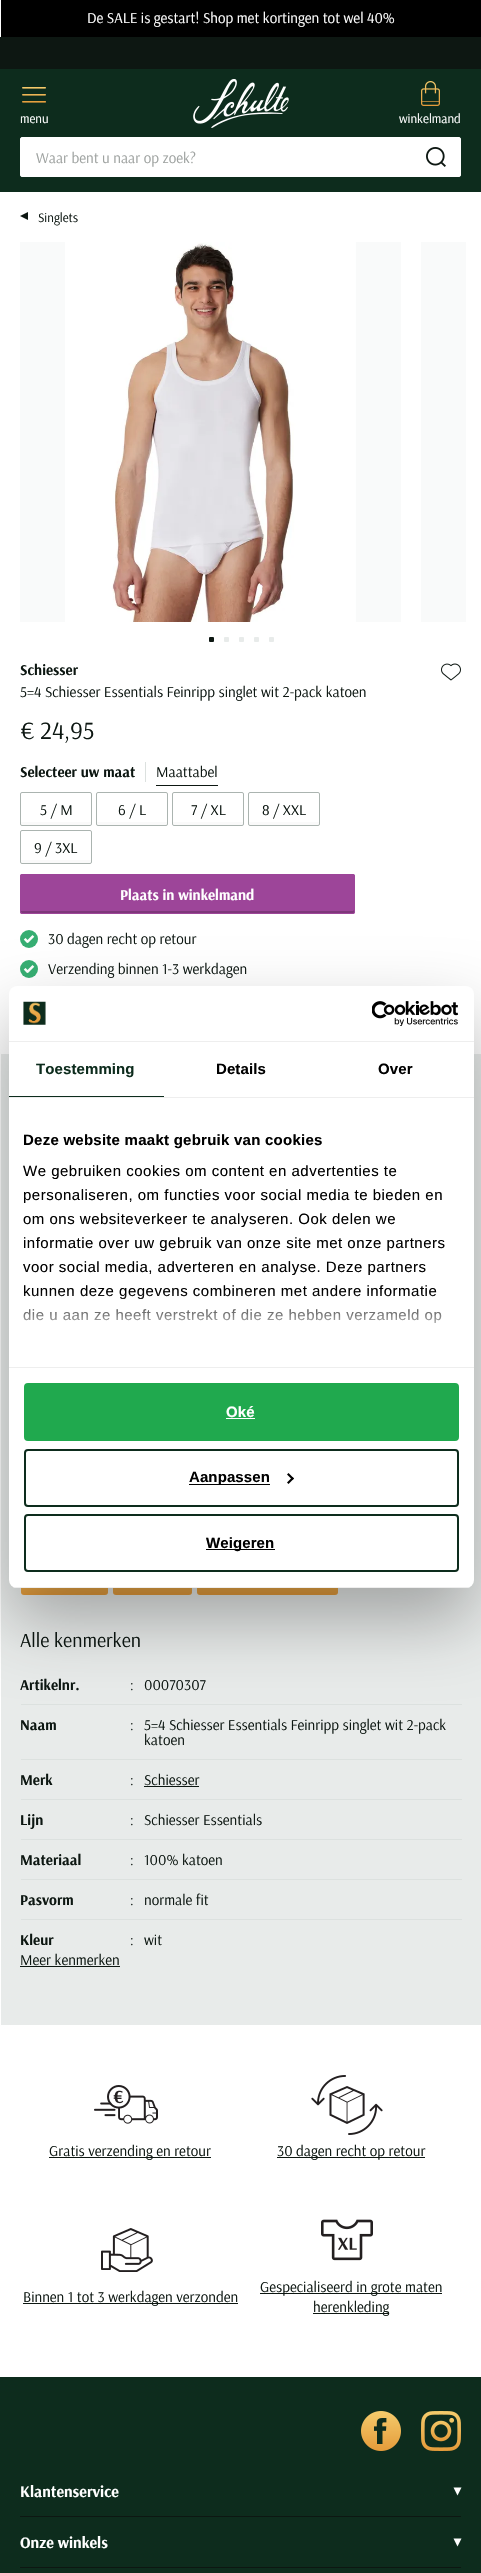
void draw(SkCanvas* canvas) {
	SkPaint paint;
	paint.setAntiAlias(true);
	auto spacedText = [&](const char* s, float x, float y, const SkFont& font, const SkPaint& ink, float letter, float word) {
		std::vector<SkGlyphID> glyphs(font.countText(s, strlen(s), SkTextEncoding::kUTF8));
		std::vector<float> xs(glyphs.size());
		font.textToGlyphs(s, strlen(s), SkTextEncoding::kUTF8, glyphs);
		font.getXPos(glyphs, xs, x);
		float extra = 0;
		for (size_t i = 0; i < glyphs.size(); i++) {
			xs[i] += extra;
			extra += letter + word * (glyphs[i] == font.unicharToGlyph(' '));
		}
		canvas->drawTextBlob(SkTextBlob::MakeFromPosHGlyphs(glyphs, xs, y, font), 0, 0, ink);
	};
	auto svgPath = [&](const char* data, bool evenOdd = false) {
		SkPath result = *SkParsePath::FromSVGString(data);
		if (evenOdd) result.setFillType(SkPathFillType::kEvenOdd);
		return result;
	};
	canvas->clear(0xffffffff);
	paint.setColor(0xff000000);
	canvas->drawRect(SkRect::MakeXYWH(1, 0, 480, 37), paint);
	SkFont f1(fontMgr->matchFamilyStyle("Arsenal", SkFontStyle::Normal()), 15);
	f1.setSubpixel(true);
	paint.setColor(0xffffffff);
	canvas->drawString("De SALE is gestart! Shop met kortingen tot wel 40%", 87, 23, f1, paint);
	paint.setColor(0xff0d1712);
	canvas->drawRect(SkRect::MakeXYWH(0, 37, 481, 32), paint);
	paint.setColor(0xff0d2c1d);
	canvas->drawRect(SkRect::MakeXYWH(0, 69, 481, 123), paint);
	canvas->drawImageRect(SkImages::DeferredFromEncodedData(SkData::MakeFromFileName("img1.png")), SkRect::MakeXYWH(22, 87, 24, 16), SkSamplingOptions());
	SkFont f2(fontMgr->matchFamilyStyle("Arsenal", SkFontStyle::Normal()), 13);
	f2.setSubpixel(true);
	paint.setColor(0xffffffff);
	canvas->drawString("menu", 20, 123, f2, paint);
	canvas->drawImageRect(SkImages::DeferredFromEncodedData(SkData::MakeFromFileName("img2.png")), SkRect::MakeXYWH(193, 79, 96, 49), SkSamplingOptions());
	canvas->drawImageRect(SkImages::DeferredFromEncodedData(SkData::MakeFromFileName("img3.png")), SkRect::MakeXYWH(421, 81, 19, 25), SkSamplingOptions());
	canvas->drawString("winkelmand", 399, 123, f2, paint);
	canvas->drawRoundRect(SkRect::MakeXYWH(20.5, 137.5, 440, 39), 1.5, 1.5, paint);
	paint.setStroke(true);
	paint.setStrokeWidth(1);
	canvas->drawRoundRect(SkRect::MakeXYWH(20.5, 137.5, 440, 39), 1.5, 1.5, paint);
	paint.setStroke(false);
	paint.setColor(0xff9ea2a0);
	canvas->drawString("Waar bent u naar op zoek?", 36, 163, f1, paint);
	canvas->drawImageRect(SkImages::DeferredFromEncodedData(SkData::MakeFromFileName("img4.png")), SkRect::MakeXYWH(426, 147, 20, 20), SkSamplingOptions());
	paint.setColor(0xff0d1712);
	canvas->drawPath(svgPath("M20 216L28 212V220Z"), paint);
	canvas->drawString("Singlets", 38, 222, f2, paint);
	paint.setColor(0xfff9fafa);
	canvas->drawRect(SkRect::MakeXYWH(20, 242, 381, 380), paint);
	canvas->drawImageRect(SkImages::DeferredFromEncodedData(SkData::MakeFromFileName("img5.png")), SkRect::MakeXYWH(65, 242, 291, 380), SkSamplingOptions());
	canvas->drawRect(SkRect::MakeXYWH(421, 242, 45, 380), paint);
	paint.setColor(0xff0d1712);
	canvas->drawRoundRect(SkRect::MakeXYWH(209, 637, 5, 5), 1, 1, paint);
	paint.setColor(0xffe8ebea);
	canvas->drawRoundRect(SkRect::MakeXYWH(224, 637, 5, 5), 1, 1, paint);
	canvas->drawRoundRect(SkRect::MakeXYWH(239, 637, 5, 5), 1, 1, paint);
	canvas->drawRoundRect(SkRect::MakeXYWH(254, 637, 5, 5), 1, 1, paint);
	canvas->drawRoundRect(SkRect::MakeXYWH(269, 637, 5, 5), 1, 1, paint);
	SkFont f3(fontMgr->matchFamilyStyle("Arsenal", SkFontStyle::Bold()), 15);
	f3.setSubpixel(true);
	paint.setColor(0xff0d1712);
	canvas->drawString("Schiesser", 20, 675, f3, paint);
	canvas->drawImageRect(SkImages::DeferredFromEncodedData(SkData::MakeFromFileName("img6.png")), SkRect::MakeXYWH(441, 663, 20, 18), SkSamplingOptions());
	canvas->drawString("5=4 Schiesser Essentials Feinripp singlet wit 2-pack katoen", 20, 697, f1, paint);
	SkFont f4(fontMgr->matchFamilyStyle("Arsenal", SkFontStyle::Normal()), 25);
	f4.setSubpixel(true);
	canvas->drawString("€ 24,95", 20, 739, f4, paint);
	canvas->drawString("Selecteer uw maat", 20, 777, f3, paint);
	paint.setColor(0xffdce1df);
	canvas->drawRect(SkRect::MakeXYWH(145, 762, 1, 20), paint);
	paint.setColor(0xff0d1712);
	canvas->drawString("Maattabel", 156, 777, f1, paint);
	canvas->drawRect(SkRect::MakeXYWH(156, 785, 62, 1), paint);
	paint.setColor(0xfffafafa);
	canvas->drawPath(svgPath("M21 821C21 828 23 825 33 825H79C89 825 91 828 91 821C91 822 91 822 90 822H22C21 822 21 822 21 821Z"), paint);
	paint.setStroke(true);
	paint.setColor(0xffabb4b0);
	canvas->drawRoundRect(SkRect::MakeXYWH(20.5, 792.5, 71, 33), 1.5, 1.5, paint);
	paint.setStroke(false);
	paint.setColor(0xff0d1712);
	canvas->drawString("5 / M", 40, 815, f1, paint);
	paint.setColor(0xfffafafa);
	canvas->drawPath(svgPath("M97 821C97 828 99 825 109 825H155C165 825 167 828 167 821C167 822 167 822 166 822H98C97 822 97 822 97 821Z"), paint);
	paint.setStroke(true);
	paint.setColor(0xffabb4b0);
	canvas->drawRoundRect(SkRect::MakeXYWH(96.5, 792.5, 71, 33), 1.5, 1.5, paint);
	paint.setStroke(false);
	paint.setColor(0xff0d1712);
	canvas->drawString("6 / L", 118, 815, f1, paint);
	paint.setColor(0xfffafafa);
	canvas->drawPath(svgPath("M173 821C173 828 175 825 185 825H231C241 825 243 828 243 821C243 822 243 822 242 822H174C173 822 173 822 173 821Z"), paint);
	paint.setStroke(true);
	paint.setColor(0xffabb4b0);
	canvas->drawRoundRect(SkRect::MakeXYWH(172.5, 792.5, 71, 33), 1.5, 1.5, paint);
	paint.setStroke(false);
	paint.setColor(0xff0d1712);
	canvas->drawString("7 / XL", 191, 815, f1, paint);
	paint.setColor(0xfffafafa);
	canvas->drawPath(svgPath("M249 821C249 828 251 825 261 825H307C317 825 319 828 319 821C319 822 319 822 318 822H250C249 822 249 822 249 821Z"), paint);
	paint.setStroke(true);
	paint.setColor(0xffabb4b0);
	canvas->drawRoundRect(SkRect::MakeXYWH(248.5, 792.5, 71, 33), 1.5, 1.5, paint);
	paint.setStroke(false);
	paint.setColor(0xff0d1712);
	canvas->drawString("8 / XXL", 262, 815, f1, paint);
	paint.setColor(0xfffafafa);
	canvas->drawPath(svgPath("M21 859C21 866 23 863 33 863H79C89 863 91 866 91 859C91 860 91 860 90 860H22C21 860 21 860 21 859Z"), paint);
	paint.setStroke(true);
	paint.setColor(0xffabb4b0);
	canvas->drawRoundRect(SkRect::MakeXYWH(20.5, 830.5, 71, 33), 1.5, 1.5, paint);
	paint.setStroke(false);
	paint.setColor(0xff0d1712);
	canvas->drawString("9 / 3XL", 34, 853, f1, paint);
	paint.setColor(0xff9d4599);
	canvas->drawRoundRect(SkRect::MakeXYWH(20, 874, 335, 40), 2, 2, paint);
	paint.setColor(0xff7e377a);
	canvas->drawPath(svgPath("M21 911C21 912 21 913 22 913H354V910L353 911Z"), paint);
	paint.setStroke(true);
	paint.setColor(0xff9d4599);
	canvas->drawRoundRect(SkRect::MakeXYWH(20.5, 874.5, 334, 39), 1.5, 1.5, paint);
	paint.setStroke(false);
	paint.setColor(0xffffffff);
	canvas->drawString("Plaats in winkelmand", 120, 900, f3, paint);
	paint.setColor(0xff36ae72);
	canvas->drawCircle(29, 939, 9, paint);
	paint.setColor(0xff0d1712);
	canvas->drawString("30 dagen recht op retour", 48, 944, f1, paint);
	canvas->drawImageRect(SkImages::DeferredFromEncodedData(SkData::MakeFromFileName("img7.png")), SkRect::MakeXYWH(23, 935, 12, 8), SkSamplingOptions());
	paint.setColor(0xff36ae72);
	canvas->drawCircle(29, 969, 9, paint);
	paint.setColor(0xff0d1712);
	canvas->drawString("Verzending binnen 1-3 werkdagen", 48, 974, f1, paint);
	canvas->drawImageRect(SkImages::DeferredFromEncodedData(SkData::MakeFromFileName("img7.png")), SkRect::MakeXYWH(23, 965, 12, 8), SkSamplingOptions());
	paint.setColor(0xffe8ebea);
	canvas->drawRect(SkRect::MakeXYWH(1, 1054, 480, 971), paint);
	{
		const SkColor colors[] = {0xfff4cb6c, 0xffe59b3a};
		const float stops[] = {0, 1};
		const SkPoint ends[] = {{64, 1563}, {64, 1595}};
		paint.setShader(SkGradientShader::MakeLinear(ends, colors, stops, 2, SkTileMode::kClamp));
		paint.setAlpha(255);
	}
	canvas->drawRoundRect(SkRect::MakeXYWH(21, 1563, 87, 32), 3, 3, paint);
	{
		const SkColor colors[] = {0xfff4cb6c, 0xffe59b3a};
		const float stops[] = {0, 1};
		const SkPoint ends[] = {{152, 1563}, {152, 1595}};
		paint.setShader(SkGradientShader::MakeLinear(ends, colors, stops, 2, SkTileMode::kClamp));
		paint.setAlpha(255);
	}
	canvas->drawRoundRect(SkRect::MakeXYWH(113, 1563, 79, 32), 3, 3, paint);
	{
		const SkColor colors[] = {0xfff4cb6c, 0xffe59b3a};
		const float stops[] = {0, 1};
		const SkPoint ends[] = {{267, 1563}, {267, 1595}};
		paint.setShader(SkGradientShader::MakeLinear(ends, colors, stops, 2, SkTileMode::kClamp));
		paint.setAlpha(255);
	}
	canvas->drawRoundRect(SkRect::MakeXYWH(197, 1563, 141, 32), 3, 3, paint);
	SkFont f5(fontMgr->matchFamilyStyle("Arsenal", SkFontStyle::Normal()), 20);
	f5.setSubpixel(true);
	paint.setShader(nullptr);
	paint.setColor(0xff0d1712);
	canvas->drawString("Alle kenmerken", 20, 1647, f5, paint);
	paint.setColor(0xffdce1df);
	canvas->drawRect(SkRect::MakeXYWH(21, 1704, 441, 1), paint);
	paint.setColor(0xff0d1712);
	canvas->drawString("Artikelnr.", 20, 1690, f3, paint);
	canvas->drawString(":", 130, 1690, f1, paint);
	canvas->drawString("00070307", 144, 1690, f1, paint);
	paint.setColor(0xffdce1df);
	canvas->drawRect(SkRect::MakeXYWH(21, 1759, 441, 1), paint);
	paint.setColor(0xff0d1712);
	canvas->drawString("Naam", 20, 1730, f3, paint);
	canvas->drawString(":", 130, 1730, f1, paint);
	canvas->drawString("5=4 Schiesser Essentials Feinripp singlet wit 2-pack", 144, 1730, f1, paint);
	canvas->drawString("katoen", 144, 1745, f1, paint);
	paint.setColor(0xffdce1df);
	canvas->drawRect(SkRect::MakeXYWH(21, 1799, 441, 1), paint);
	paint.setColor(0xff0d1712);
	canvas->drawString("Merk", 20, 1785, f3, paint);
	canvas->drawString(":", 130, 1785, f1, paint);
	canvas->drawString("Schiesser", 144, 1785, f1, paint);
	canvas->drawRect(SkRect::MakeXYWH(144, 1786, 55, 1), paint);
	paint.setColor(0xffdce1df);
	canvas->drawRect(SkRect::MakeXYWH(21, 1839, 441, 1), paint);
	paint.setColor(0xff0d1712);
	canvas->drawString("Lijn", 20, 1825, f3, paint);
	canvas->drawString(":", 130, 1825, f1, paint);
	canvas->drawString("Schiesser Essentials", 144, 1825, f1, paint);
	paint.setColor(0xffdce1df);
	canvas->drawRect(SkRect::MakeXYWH(21, 1879, 441, 1), paint);
	paint.setColor(0xff0d1712);
	canvas->drawString("Materiaal", 20, 1865, f3, paint);
	canvas->drawString(":", 130, 1865, f1, paint);
	canvas->drawString("100% katoen", 144, 1865, f1, paint);
	paint.setColor(0xffdce1df);
	canvas->drawRect(SkRect::MakeXYWH(21, 1919, 441, 1), paint);
	paint.setColor(0xff0d1712);
	canvas->drawString("Pasvorm", 20, 1905, f3, paint);
	canvas->drawString(":", 130, 1905, f1, paint);
	canvas->drawString("normale fit", 144, 1905, f1, paint);
	canvas->save();
	canvas->clipRect(SkRect::MakeXYWH(21, 1665, 441, 280));
	canvas->drawString("Kleur", 20, 1945, f3, paint);
	canvas->restore();
	canvas->drawString(":", 130, 1945, f1, paint);
	canvas->drawString("wit", 144, 1945, f1, paint);
	canvas->drawString("Meer kenmerken", 20, 1965, f1, paint);
	canvas->drawRect(SkRect::MakeXYWH(20, 1966, 100, 1), paint);
	canvas->drawImageRect(SkImages::DeferredFromEncodedData(SkData::MakeFromFileName("img8.png")), SkRect::MakeXYWH(94, 2085, 64, 39), SkSamplingOptions());
	canvas->drawRect(SkRect::MakeXYWH(49, 2157, 162, 1), paint);
	canvas->drawString("Gratis verzending en retour", 49, 2156, f1, paint);
	canvas->drawImageRect(SkImages::DeferredFromEncodedData(SkData::MakeFromFileName("img9.png")), SkRect::MakeXYWH(311, 2075, 72, 60), SkSamplingOptions());
	canvas->drawRect(SkRect::MakeXYWH(277, 2157, 148, 1), paint);
	canvas->drawString("30 dagen recht op retour", 277, 2156, f1, paint);
	canvas->drawImageRect(SkImages::DeferredFromEncodedData(SkData::MakeFromFileName("img10.png")), SkRect::MakeXYWH(101, 2228, 52, 44), SkSamplingOptions());
	canvas->drawRect(SkRect::MakeXYWH(23, 2303, 215, 1), paint);
	canvas->drawString("Binnen 1 tot 3 werkdagen verzonden", 23, 2302, f1, paint);
	canvas->drawImageRect(SkImages::DeferredFromEncodedData(SkData::MakeFromFileName("img11.png")), SkRect::MakeXYWH(321, 2219, 52, 42), SkSamplingOptions());
	canvas->drawRect(SkRect::MakeXYWH(260, 2293, 182, 1), paint);
	canvas->drawString("Gespecialiseerd in grote maten", 260, 2292, f1, paint);
	canvas->drawRect(SkRect::MakeXYWH(313, 2313, 76, 1), paint);
	canvas->drawString("herenkleding", 313, 2312, f1, paint);
	paint.setColor(0xff0d2c1d);
	canvas->drawRect(SkRect::MakeXYWH(0, 2377, 481, 196), paint);
	canvas->drawImageRect(SkImages::DeferredFromEncodedData(SkData::MakeFromFileName("img12.png")), SkRect::MakeXYWH(361, 2411, 40, 40), SkSamplingOptions());
	canvas->drawImageRect(SkImages::DeferredFromEncodedData(SkData::MakeFromFileName("img13.png")), SkRect::MakeXYWH(421, 2411, 40, 40), SkSamplingOptions());
	paint.setColor(0xff0d1712);
	canvas->drawRect(SkRect::MakeXYWH(20, 2516, 441, 1), paint);
	SkFont f6(fontMgr->matchFamilyStyle("Arsenal", SkFontStyle::Bold()), 16);
	f6.setSubpixel(true);
	paint.setColor(0xffffffff);
	canvas->drawString("Klantenservice", 20, 2497, f6, paint);
	canvas->drawPath(svgPath("M457.5 2495.5L453.5 2487.5H461.5ZM457.5 2546.5L453.5 2538.5H461.5Z"), paint);
	paint.setColor(0xff0d1712);
	canvas->drawRect(SkRect::MakeXYWH(20, 2567, 441, 1), paint);
	paint.setColor(0xffffffff);
	canvas->drawString("Onze winkels", 20, 2548, f6, paint);
	paint.setColor(0x4d000000);
	paint.setMaskFilter(SkMaskFilter::MakeBlur(kNormal_SkBlurStyle, 34));
	canvas->drawRoundRect(SkRect::MakeXYWH(9, 1018, 465, 602), 8, 8, paint);
	paint.setMaskFilter(nullptr);
	paint.setColor(0xffffffff);
	canvas->drawRoundRect(SkRect::MakeXYWH(9, 986, 465, 602), 8, 8, paint);
	paint.setColor(0xffeeeeee);
	canvas->drawRect(SkRect::MakeXYWH(9, 1041, 465, 1), paint);
	canvas->drawImageRect(SkImages::DeferredFromEncodedData(SkData::MakeFromFileName("img14.png")), SkRect::MakeXYWH(23, 1001, 23, 24), SkSamplingOptions());
	canvas->drawImageRect(SkImages::DeferredFromEncodedData(SkData::MakeFromFileName("img15.png")), SkRect::MakeXYWH(372, 1001, 87, 25), SkSamplingOptions());
	canvas->drawRect(SkRect::MakeXYWH(9, 1097, 465, 1), paint);
	paint.setColor(0xff0d2c1d);
	canvas->drawRect(SkRect::MakeXYWH(9, 1096, 155, 1), paint);
	SkFont f7(fontMgr->matchFamilyStyle("Liberation Sans", SkFontStyle::Bold()), 15);
	f7.setSubpixel(true);
	spacedText("Toestemming", 36, 1074, f7, paint, 0.1, 0);
	paint.setColor(0xff000000);
	spacedText("Details", 216, 1074, f7, paint, 0.1, 0);
	spacedText("Over", 378, 1074, f7, paint, 0.1, 0);
	paint.setColor(0xffeeeeee);
	canvas->drawRect(SkRect::MakeXYWH(9, 1367, 465, 1), paint);
	paint.setColor(0xff000000);
	spacedText("Deze website maakt gebruik van cookies", 23, 1145, f7, paint, 0.25, 0);
	SkFont f8(fontMgr->matchFamilyStyle("Liberation Sans", SkFontStyle::Normal()), 15);
	f8.setSubpixel(true);
	spacedText("We gebruiken cookies om content en advertenties te", 23, 1176, f8, paint, 0.5, 0);
	spacedText("personaliseren, om functies voor social media te bieden en", 23, 1200, f8, paint, 0.5, 0);
	spacedText("om ons websiteverkeer te analyseren. Ook delen we", 23, 1224, f8, paint, 0.5, 0);
	spacedText("informatie over uw gebruik van onze site met onze partners", 23, 1248, f8, paint, 0.5, 0);
	spacedText("voor social media, adverteren en analyse. Deze partners", 23, 1272, f8, paint, 0.5, 0);
	spacedText("kunnen deze gegevens combineren met andere informatie", 23, 1296, f8, paint, 0.5, 0);
	spacedText("die u aan ze heeft verstrekt of die ze hebben verzameld op", 23, 1320, f8, paint, 0.5, 0);
	{
		const SkColor colors[] = {0xffffffff, 0xccffffff, 0x00ffffff};
		const float stops[] = {0, 0.5, 1};
		const SkPoint ends[] = {{235, 1367}, {235, 1292}};
		paint.setShader(SkGradientShader::MakeLinear(ends, colors, stops, 3, SkTileMode::kClamp));
		paint.setAlpha(255);
	}
	canvas->drawRect(SkRect::MakeXYWH(23, 1293, 419, 31), paint);
	canvas->save();
	canvas->clipPath(svgPath("M17 986H466C470.5 986 474 989.5 474 994V1580C474 1584.5 470.5 1588 466 1588H17C12.5 1588 9 1584.5 9 1580V994C9 989.5 12.5 986 17 986Z"), true);
	paint.setShader(nullptr);
	paint.setColor(0xffeeeeee);
	canvas->drawRect(SkRect::MakeXYWH(9, 1587, 465, 1), paint);
	canvas->restore();
	paint.setColor(0xff20a94e);
	canvas->drawRoundRect(SkRect::MakeXYWH(25, 1384, 433, 56), 3, 3, paint);
	paint.setStroke(true);
	paint.setStrokeWidth(2);
	canvas->drawRoundRect(SkRect::MakeXYWH(25, 1384, 433, 56), 3, 3, paint);
	paint.setStroke(false);
	paint.setColor(0xffffffff);
	spacedText("Oké", 226, 1417, f7, paint, 0.1, 0);
	canvas->drawRect(SkRect::MakeXYWH(226, 1418, 29, 1), paint);
	paint.setStroke(true);
	paint.setColor(0xff0d2c1d);
	canvas->drawRoundRect(SkRect::MakeXYWH(25, 1450, 433, 56), 3, 3, paint);
	paint.setStroke(false);
	paint.setColor(0xff000000);
	canvas->drawRect(SkRect::MakeXYWH(189, 1484, 81, 1), paint);
	spacedText("Aanpassen", 189, 1482, f7, paint, 0.1, 0);
	canvas->drawPath(svgPath("M288.5 1473L294 1478.5L292.5 1480L287 1474.5Z"), paint);
	canvas->drawPath(svgPath("M292.5 1477L294 1478.5L288.5 1484L287 1482.5Z"), paint);
	paint.setStroke(true);
	paint.setColor(0xff0d2c1d);
	canvas->drawRoundRect(SkRect::MakeXYWH(25, 1515, 433, 56), 3, 3, paint);
	paint.setStroke(false);
	paint.setColor(0xff000000);
	canvas->drawRect(SkRect::MakeXYWH(206, 1549, 69, 1), paint);
	spacedText("Weigeren", 206, 1548, f7, paint, 0.1, 0);
}
